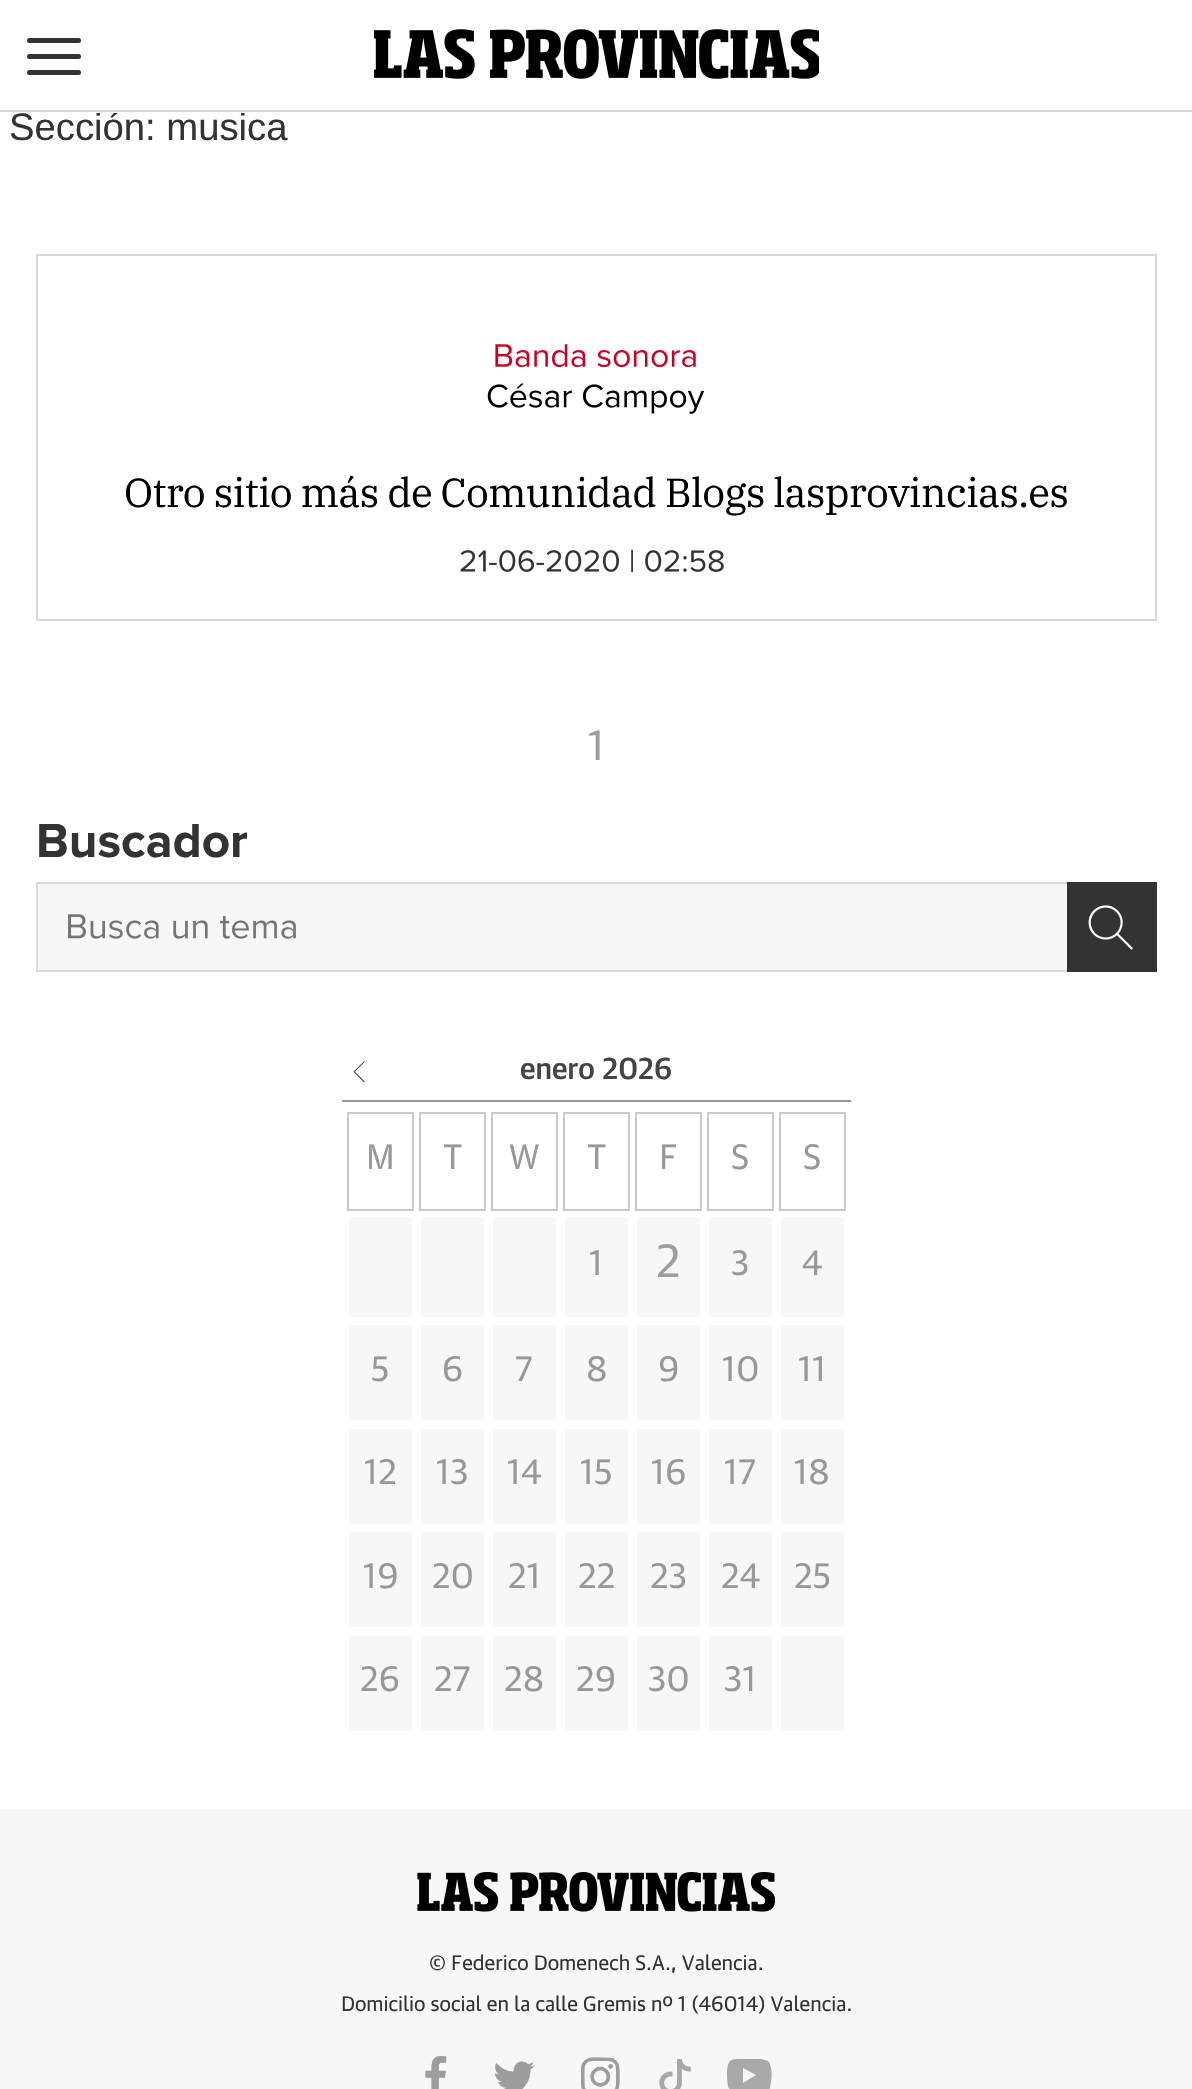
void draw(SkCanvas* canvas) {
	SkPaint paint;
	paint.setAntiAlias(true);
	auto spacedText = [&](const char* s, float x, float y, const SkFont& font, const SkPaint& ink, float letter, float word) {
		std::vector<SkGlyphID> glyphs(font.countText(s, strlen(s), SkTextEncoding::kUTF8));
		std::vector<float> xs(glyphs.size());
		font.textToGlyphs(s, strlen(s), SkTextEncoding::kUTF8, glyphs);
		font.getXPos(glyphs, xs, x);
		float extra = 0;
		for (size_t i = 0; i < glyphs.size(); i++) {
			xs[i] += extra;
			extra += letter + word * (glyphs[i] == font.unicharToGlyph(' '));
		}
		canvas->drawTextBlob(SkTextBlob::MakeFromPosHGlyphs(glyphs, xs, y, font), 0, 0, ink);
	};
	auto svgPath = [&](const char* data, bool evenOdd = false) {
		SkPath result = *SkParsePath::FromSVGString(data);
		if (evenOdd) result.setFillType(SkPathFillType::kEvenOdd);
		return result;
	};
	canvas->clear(0xfff7f7f8);
	paint.setColor(0xffffffff);
	canvas->drawRect(SkRect::MakeXYWH(0, 113, 1192, 1696), paint);
	SkFont f1(fontMgr->matchFamilyStyle("Liberation Sans", SkFontStyle::Normal()), 38.25);
	f1.setSubpixel(true);
	paint.setColor(0xff333333);
	canvas->drawString("Sección: musica", 9, 140, f1, paint);
	paint.setColor(0xffffffff);
	canvas->drawRect(SkRect::MakeXYWH(0, 0, 1192, 113), paint);
	paint.setColor(0xffd8d8d8);
	canvas->drawRect(SkRect::MakeXYWH(0, 110, 1192, 2), paint);
	paint.setColor(0xff333333);
	canvas->drawRoundRect(SkRect::MakeXYWH(27, 38, 54, 5), 2.5, 2.5, paint);
	canvas->drawRoundRect(SkRect::MakeXYWH(27, 54, 54, 5), 2.5, 2.5, paint);
	canvas->drawRoundRect(SkRect::MakeXYWH(27, 70, 54, 5), 2.5, 2.5, paint);
	canvas->drawImageRect(SkImages::DeferredFromEncodedData(SkData::MakeFromFileName("img1.png")), SkRect::MakeXYWH(374, 29, 445, 50), SkSamplingOptions());
	paint.setStroke(true);
	paint.setStrokeWidth(2);
	paint.setColor(0xffd8d8d8);
	canvas->drawRect(SkRect::MakeXYWH(37, 255, 1119, 365), paint);
	canvas->drawImageRect(SkImages::DeferredFromEncodedData(SkData::MakeFromFileName("img2.png")), SkRect::MakeXYWH(495, 344, 201, 24), SkSamplingOptions());
	canvas->drawImageRect(SkImages::DeferredFromEncodedData(SkData::MakeFromFileName("img3.png")), SkRect::MakeXYWH(487, 383, 218, 31), SkSamplingOptions());
	SkFont f2(fontMgr->matchFamilyStyle("IBM Plex Serif", SkFontStyle::Normal()), 40.5);
	f2.setSubpixel(true);
	paint.setStroke(false);
	paint.setColor(0xff000000);
	spacedText("Otro sitio más de Comunidad Blogs lasprovincias.es", 124, 507, f2, paint, -0.8, 0);
	canvas->drawImageRect(SkImages::DeferredFromEncodedData(SkData::MakeFromFileName("img4.png")), SkRect::MakeXYWH(460, 549, 264, 24), SkSamplingOptions());
	SkFont f3(fontMgr->matchFamilyStyle("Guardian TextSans", SkFontStyle::Normal()), 40.5);
	f3.setSubpixel(true);
	paint.setColor(0xff9d9d9d);
	canvas->drawString("1", 588, 760, f3, paint);
	SkFont f4(fontMgr->matchFamilyStyle("Proxima Nova", SkFontStyle::Normal()), 49.5);
	f4.setSubpixel(true);
	paint.setColor(0xff333333);
	canvas->drawString("Buscador", 36, 857, f4, paint);
	paint.setColor(0xfff7f7f8);
	canvas->drawRect(SkRect::MakeXYWH(38, 884, 1029, 86), paint);
	paint.setStroke(true);
	paint.setColor(0xffd8d8d8);
	canvas->drawRect(SkRect::MakeXYWH(37, 883, 1119, 88), paint);
	canvas->drawImageRect(SkImages::DeferredFromEncodedData(SkData::MakeFromFileName("img5.png")), SkRect::MakeXYWH(68, 914, 228, 25), SkSamplingOptions());
	paint.setStroke(false);
	paint.setColor(0xff333333);
	canvas->drawRect(SkRect::MakeXYWH(1067, 882, 90, 90), paint);
	canvas->drawImageRect(SkImages::DeferredFromEncodedData(SkData::MakeFromFileName("img6.png")), SkRect::MakeXYWH(1088, 905, 45, 45), SkSamplingOptions());
	paint.setColor(0xff979899);
	canvas->drawRect(SkRect::MakeXYWH(342, 1100, 509, 2), paint);
	SkFont f5(fontMgr->matchFamilyStyle("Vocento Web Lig", SkFontStyle::Normal()), 29.25);
	f5.setSubpixel(true);
	paint.setColor(0xff333333);
	canvas->drawString("←", 351, 1082, f5, paint);
	SkFont f6(fontMgr->matchFamilyStyle("Guardian TextSans", SkFontStyle(500, SkFontStyle::kNormal_Width, SkFontStyle::kUpright_Slant)), 29.25);
	f6.setSubpixel(true);
	paint.setColor(0xff444444);
	canvas->drawString("enero 2026", 520, 1079, f6, paint);
	paint.setStroke(true);
	paint.setColor(0xffc9cacb);
	canvas->drawRect(SkRect::MakeXYWH(348, 1113, 65, 97), paint);
	SkFont f7(fontMgr->matchFamilyStyle("Guardian TextSans", SkFontStyle::Normal()), 34);
	f7.setSubpixel(true);
	paint.setStroke(false);
	paint.setColor(0xff979899);
	canvas->drawString("M", 366, 1169, f7, paint);
	paint.setStroke(true);
	paint.setColor(0xffc9cacb);
	canvas->drawRect(SkRect::MakeXYWH(420, 1113, 65, 97), paint);
	paint.setStroke(false);
	paint.setColor(0xff979899);
	canvas->drawString("T", 443, 1169, f7, paint);
	paint.setStroke(true);
	paint.setColor(0xffc9cacb);
	canvas->drawRect(SkRect::MakeXYWH(492, 1113, 65, 97), paint);
	paint.setStroke(false);
	paint.setColor(0xff979899);
	canvas->drawString("W", 509, 1169, f7, paint);
	paint.setStroke(true);
	paint.setColor(0xffc9cacb);
	canvas->drawRect(SkRect::MakeXYWH(564, 1113, 65, 97), paint);
	paint.setStroke(false);
	paint.setColor(0xff979899);
	canvas->drawString("T", 587, 1169, f7, paint);
	paint.setStroke(true);
	paint.setColor(0xffc9cacb);
	canvas->drawRect(SkRect::MakeXYWH(636, 1113, 65, 97), paint);
	paint.setStroke(false);
	paint.setColor(0xff979899);
	canvas->drawString("F", 659, 1169, f7, paint);
	paint.setStroke(true);
	paint.setColor(0xffc9cacb);
	canvas->drawRect(SkRect::MakeXYWH(708, 1113, 65, 97), paint);
	paint.setStroke(false);
	paint.setColor(0xff979899);
	canvas->drawString("S", 731, 1169, f7, paint);
	paint.setStroke(true);
	paint.setColor(0xffc9cacb);
	canvas->drawRect(SkRect::MakeXYWH(780, 1113, 65, 97), paint);
	paint.setStroke(false);
	paint.setColor(0xff979899);
	canvas->drawString("S", 803, 1169, f7, paint);
	paint.setColor(0xfff7f7f8);
	canvas->drawRect(SkRect::MakeXYWH(349, 1217, 63, 100), paint);
	canvas->drawRect(SkRect::MakeXYWH(421, 1217, 63, 100), paint);
	canvas->drawRect(SkRect::MakeXYWH(493, 1217, 63, 100), paint);
	canvas->drawRect(SkRect::MakeXYWH(565, 1217, 63, 100), paint);
	paint.setColor(0xff979899);
	canvas->drawString("1", 589, 1275, f7, paint);
	paint.setColor(0xfff7f7f8);
	canvas->drawRect(SkRect::MakeXYWH(637, 1217, 63, 100), paint);
	SkFont f8(fontMgr->matchFamilyStyle("Guardian TextSans", SkFontStyle::Normal()), 45);
	f8.setSubpixel(true);
	paint.setColor(0xff9d9d9d);
	canvas->drawString("2", 656, 1277, f8, paint);
	paint.setColor(0xfff7f7f8);
	canvas->drawRect(SkRect::MakeXYWH(709, 1217, 63, 100), paint);
	paint.setColor(0xff979899);
	canvas->drawString("3", 731, 1275, f7, paint);
	paint.setColor(0xfff7f7f8);
	canvas->drawRect(SkRect::MakeXYWH(781, 1217, 63, 100), paint);
	paint.setColor(0xff979899);
	canvas->drawString("4", 802, 1275, f7, paint);
	paint.setColor(0xfff7f7f8);
	canvas->drawRect(SkRect::MakeXYWH(349, 1325, 63, 95), paint);
	paint.setColor(0xff979899);
	canvas->drawString("5", 371, 1381, f7, paint);
	paint.setColor(0xfff7f7f8);
	canvas->drawRect(SkRect::MakeXYWH(421, 1325, 63, 95), paint);
	paint.setColor(0xff979899);
	canvas->drawString("6", 442, 1381, f7, paint);
	paint.setColor(0xfff7f7f8);
	canvas->drawRect(SkRect::MakeXYWH(493, 1325, 63, 95), paint);
	paint.setColor(0xff979899);
	canvas->drawString("7", 515, 1381, f7, paint);
	paint.setColor(0xfff7f7f8);
	canvas->drawRect(SkRect::MakeXYWH(565, 1325, 63, 95), paint);
	paint.setColor(0xff979899);
	canvas->drawString("8", 586, 1381, f7, paint);
	paint.setColor(0xfff7f7f8);
	canvas->drawRect(SkRect::MakeXYWH(637, 1325, 63, 95), paint);
	paint.setColor(0xff979899);
	canvas->drawString("9", 658, 1381, f7, paint);
	paint.setColor(0xfff7f7f8);
	canvas->drawRect(SkRect::MakeXYWH(709, 1325, 63, 95), paint);
	paint.setColor(0xff979899);
	canvas->drawString("10", 722, 1381, f7, paint);
	paint.setColor(0xfff7f7f8);
	canvas->drawRect(SkRect::MakeXYWH(781, 1325, 63, 95), paint);
	paint.setColor(0xff979899);
	canvas->drawString("11", 798, 1381, f7, paint);
	paint.setColor(0xfff7f7f8);
	canvas->drawRect(SkRect::MakeXYWH(349, 1429, 63, 95), paint);
	paint.setColor(0xff979899);
	canvas->drawString("12", 364, 1484, f7, paint);
	paint.setColor(0xfff7f7f8);
	canvas->drawRect(SkRect::MakeXYWH(421, 1429, 63, 95), paint);
	paint.setColor(0xff979899);
	canvas->drawString("13", 436, 1484, f7, paint);
	paint.setColor(0xfff7f7f8);
	canvas->drawRect(SkRect::MakeXYWH(493, 1429, 63, 95), paint);
	paint.setColor(0xff979899);
	canvas->drawString("14", 507, 1484, f7, paint);
	paint.setColor(0xfff7f7f8);
	canvas->drawRect(SkRect::MakeXYWH(565, 1429, 63, 95), paint);
	paint.setColor(0xff979899);
	canvas->drawString("15", 580, 1484, f7, paint);
	paint.setColor(0xfff7f7f8);
	canvas->drawRect(SkRect::MakeXYWH(637, 1429, 63, 95), paint);
	paint.setColor(0xff979899);
	canvas->drawString("16", 651, 1484, f7, paint);
	paint.setColor(0xfff7f7f8);
	canvas->drawRect(SkRect::MakeXYWH(709, 1429, 63, 95), paint);
	paint.setColor(0xff979899);
	canvas->drawString("17", 724, 1484, f7, paint);
	paint.setColor(0xfff7f7f8);
	canvas->drawRect(SkRect::MakeXYWH(781, 1429, 63, 95), paint);
	paint.setColor(0xff979899);
	canvas->drawString("18", 794, 1484, f7, paint);
	paint.setColor(0xfff7f7f8);
	canvas->drawRect(SkRect::MakeXYWH(349, 1532, 63, 95), paint);
	paint.setColor(0xff979899);
	canvas->drawString("19", 363, 1588, f7, paint);
	paint.setColor(0xfff7f7f8);
	canvas->drawRect(SkRect::MakeXYWH(421, 1532, 63, 95), paint);
	paint.setColor(0xff979899);
	canvas->drawString("20", 432, 1588, f7, paint);
	paint.setColor(0xfff7f7f8);
	canvas->drawRect(SkRect::MakeXYWH(493, 1532, 63, 95), paint);
	paint.setColor(0xff979899);
	canvas->drawString("21", 508, 1588, f7, paint);
	paint.setColor(0xfff7f7f8);
	canvas->drawRect(SkRect::MakeXYWH(565, 1532, 63, 95), paint);
	paint.setColor(0xff979899);
	canvas->drawString("22", 578, 1588, f7, paint);
	paint.setColor(0xfff7f7f8);
	canvas->drawRect(SkRect::MakeXYWH(637, 1532, 63, 95), paint);
	paint.setColor(0xff979899);
	canvas->drawString("23", 650, 1588, f7, paint);
	paint.setColor(0xfff7f7f8);
	canvas->drawRect(SkRect::MakeXYWH(709, 1532, 63, 95), paint);
	paint.setColor(0xff979899);
	canvas->drawString("24", 721, 1588, f7, paint);
	paint.setColor(0xfff7f7f8);
	canvas->drawRect(SkRect::MakeXYWH(781, 1532, 63, 95), paint);
	paint.setColor(0xff979899);
	canvas->drawString("25", 794, 1588, f7, paint);
	paint.setColor(0xfff7f7f8);
	canvas->drawRect(SkRect::MakeXYWH(349, 1636, 63, 95), paint);
	paint.setColor(0xff979899);
	canvas->drawString("26", 360, 1691, f7, paint);
	paint.setColor(0xfff7f7f8);
	canvas->drawRect(SkRect::MakeXYWH(421, 1636, 63, 95), paint);
	paint.setColor(0xff979899);
	canvas->drawString("27", 434, 1691, f7, paint);
	paint.setColor(0xfff7f7f8);
	canvas->drawRect(SkRect::MakeXYWH(493, 1636, 63, 95), paint);
	paint.setColor(0xff979899);
	canvas->drawString("28", 504, 1691, f7, paint);
	paint.setColor(0xfff7f7f8);
	canvas->drawRect(SkRect::MakeXYWH(565, 1636, 63, 95), paint);
	paint.setColor(0xff979899);
	canvas->drawString("29", 576, 1691, f7, paint);
	paint.setColor(0xfff7f7f8);
	canvas->drawRect(SkRect::MakeXYWH(637, 1636, 63, 95), paint);
	paint.setColor(0xff979899);
	canvas->drawString("30", 648, 1691, f7, paint);
	paint.setColor(0xfff7f7f8);
	canvas->drawRect(SkRect::MakeXYWH(709, 1636, 63, 95), paint);
	paint.setColor(0xff979899);
	canvas->drawString("31", 724, 1691, f7, paint);
	paint.setColor(0xfff7f7f8);
	canvas->drawRect(SkRect::MakeXYWH(781, 1636, 63, 95), paint);
	canvas->drawImageRect(SkImages::DeferredFromEncodedData(SkData::MakeFromFileName("img7.png")), SkRect::MakeXYWH(417, 1872, 359, 40), SkSamplingOptions());
	SkFont f9(fontMgr->matchFamilyStyle("Guardian TextSans", SkFontStyle::Normal()), 20.25);
	f9.setSubpixel(true);
	paint.setColor(0xff333333);
	canvas->drawString("© Federico Domenech S.A., Valencia.", 429, 1970, f9, paint);
	canvas->drawString("Domicilio social en la calle Gremis nº 1 (46014) Valencia.", 341, 2011, f9, paint);
	SkFont f10(fontMgr->matchFamilyStyle("Vocento Web Lig", SkFontStyle::Normal()), 54);
	f10.setSubpixel(true);
	paint.setColor(0xff9d9d9d);
	canvas->drawString("0", 420, 2096, f10, paint);
	canvas->drawString("1", 488, 2096, f10, paint);
	canvas->drawString("5", 576, 2096, f10, paint);
	canvas->drawImageRect(SkImages::DeferredFromEncodedData(SkData::MakeFromFileName("img8.png")), SkRect::MakeXYWH(659, 2059, 32, 30), SkSamplingOptions());
	canvas->save();
	canvas->clipRect(SkRect::MakeXYWH(727, 2059, 45, 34));
	paint.setColor(0xffa9a9a9);
	canvas->drawPath(svgPath("M770 2064C769 2057 749 2059 744 2059C732 2059 728 2058 727 2071C727 2076 727 2081 728 2086C729 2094 749 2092 754 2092C758 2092 768 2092 770 2088L771 2082C772 2076 772 2070 770 2064ZM743 2083V2068L756 2075Z"), paint);
	canvas->restore();
}
